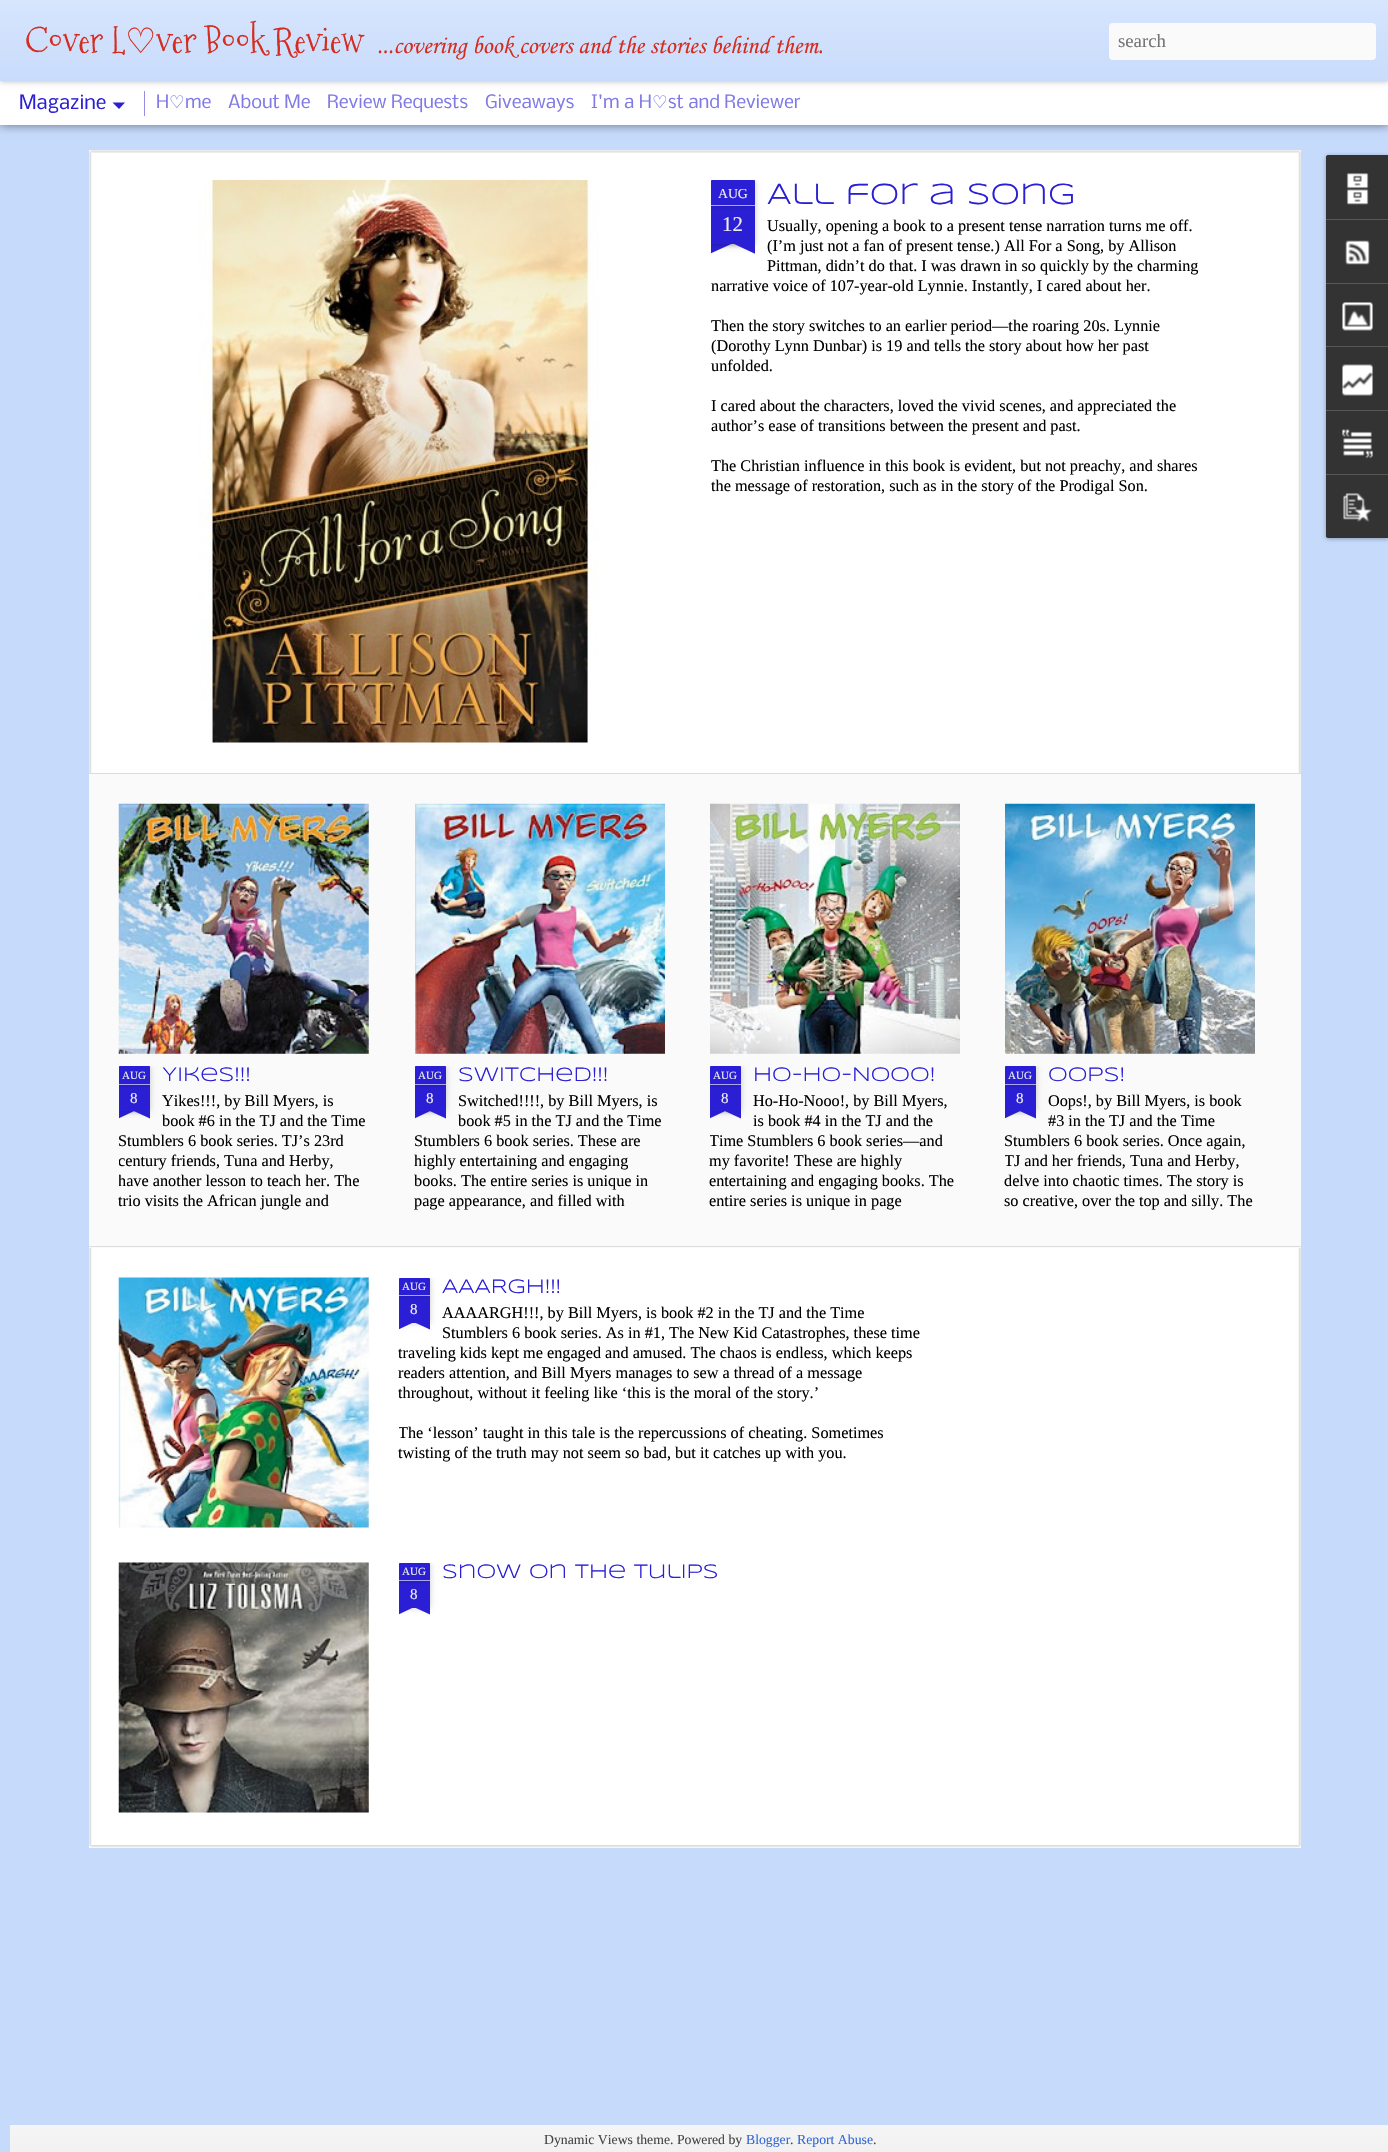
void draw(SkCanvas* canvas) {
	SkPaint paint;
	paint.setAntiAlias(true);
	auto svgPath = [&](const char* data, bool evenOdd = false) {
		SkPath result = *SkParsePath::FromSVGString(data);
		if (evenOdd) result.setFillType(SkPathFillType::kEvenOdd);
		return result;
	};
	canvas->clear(0xffc6dafc);
	paint.setColor(0x80000000);
	paint.setMaskFilter(SkMaskFilter::MakeBlur(kNormal_SkBlurStyle, 5));
	canvas->drawRect(SkRect::MakeXYWH(0, 81, 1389, 44), paint);
	paint.setMaskFilter(nullptr);
	paint.setColor(0xffffffff);
	canvas->drawRect(SkRect::MakeXYWH(0, 81, 1388, 44), paint);
	paint.setColor(0x4d000000);
	paint.setMaskFilter(SkMaskFilter::MakeBlur(kNormal_SkBlurStyle, 3));
	canvas->drawRect(SkRect::MakeXYWH(0, 0, 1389, 81), paint);
	paint.setMaskFilter(nullptr);
	{
		const SkColor colors[] = {0xffd7e5fd, 0xffc9dcfc};
		const float stops[] = {0, 1};
		const SkPoint ends[] = {{0, 0}, {0, 81}};
		paint.setShader(SkGradientShader::MakeLinear(ends, colors, stops, 2, SkTileMode::kClamp));
		paint.setAlpha(255);
	}
	canvas->drawRect(SkRect::MakeXYWH(0, 0, 1388, 81), paint);
	SkFont f1(fontMgr->matchFamilyStyle("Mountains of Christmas", SkFontStyle::Normal()), 35);
	f1.setSubpixel(true);
	paint.setShader(nullptr);
	paint.setColor(0xffd52c1f);
	canvas->drawString("Cover L", 25, 53, f1, paint);
	SkFont f2(fontMgr->matchFamilyStyle("DejaVu Sans", SkFontStyle::Normal()), 35);
	f2.setSubpixel(true);
	canvas->drawString("♡", 125, 53, f2, paint);
	canvas->drawString("ver Book Review", 156, 53, f1, paint);
	SkFont f3(fontMgr->matchFamilyStyle("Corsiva", SkFontStyle::Normal()), 25);
	f3.setSubpixel(true);
	canvas->drawString("...covering book covers and the stories behind them.", 377, 53, f3, paint);
	paint.setColor(0xfffafafa);
	canvas->drawRoundRect(SkRect::MakeXYWH(1109, 23, 267, 37), 4, 4, paint);
	SkFont f4(fontMgr->matchFamilyStyle("Liberation Serif", SkFontStyle::Normal()), 18.75);
	f4.setSubpixel(true);
	paint.setColor(0xff757575);
	canvas->drawString("search", 1118, 47, f4, paint);
	SkFont f5(fontMgr->matchFamilyStyle("Nobile", SkFontStyle::Normal()), 18.75);
	f5.setSubpixel(true);
	paint.setColor(0xff2b1fd5);
	canvas->drawString("Magazine", 19, 109, f5, paint);
	canvas->drawPath(svgPath("M112.5 102.5H125L119 109Z"), paint);
	paint.setColor(0xff958fea);
	canvas->drawRect(SkRect::MakeXYWH(144, 91, 1, 25), paint);
	SkFont f6(fontMgr->matchFamilyStyle("Nobile", SkFontStyle::Normal()), 17.5);
	f6.setSubpixel(true);
	paint.setColor(0xff8079e6);
	canvas->drawString("H", 156, 108, f6, paint);
	SkFont f7(fontMgr->matchFamilyStyle("DejaVu Sans", SkFontStyle::Normal()), 17.5);
	f7.setSubpixel(true);
	canvas->drawString("♡", 169, 108, f7, paint);
	canvas->drawString("me", 185, 108, f6, paint);
	canvas->drawString("About Me", 228, 108, f6, paint);
	canvas->drawString("Review Requests", 327, 108, f6, paint);
	canvas->drawString("Giveaways", 485, 108, f6, paint);
	canvas->drawString("I'm a H", 591, 108, f6, paint);
	canvas->drawString("♡", 652, 108, f7, paint);
	canvas->drawString("st and Reviewer", 668, 108, f6, paint);
	paint.setColor(0xffffffff);
	canvas->drawRect(SkRect::MakeXYWH(89, 150, 1212, 1698), paint);
	canvas->drawImageRect(SkImages::DeferredFromEncodedData(SkData::MakeFromFileName("img1.png")), SkRect::MakeXYWH(89, 150, 1212, 1698), SkSamplingOptions());
	canvas->drawImageRect(SkImages::DeferredFromEncodedData(SkData::MakeFromFileName("img2.png")), SkRect::MakeXYWH(198, 180, 401, 563), SkSamplingOptions());
	canvas->save();
	canvas->clipRect(SkRect::MakeXYWH(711, 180, 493, 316));
	paint.setColor(0x33000000);
	paint.setMaskFilter(SkMaskFilter::MakeBlur(kNormal_SkBlurStyle, 3));
	canvas->drawRect(SkRect::MakeXYWH(711, 206, 44, 38), paint);
	paint.setMaskFilter(nullptr);
	canvas->restore();
	paint.setColor(0xff2b1fd5);
	canvas->drawRect(SkRect::MakeXYWH(711, 206, 44, 38), paint);
	canvas->save();
	canvas->clipRect(SkRect::MakeXYWH(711, 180, 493, 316));
	paint.setColor(0x33000000);
	paint.setMaskFilter(SkMaskFilter::MakeBlur(kNormal_SkBlurStyle, 3));
	canvas->drawRoundRect(SkRect::MakeXYWH(711, 180, 44, 26), 1, 1, paint);
	paint.setMaskFilter(nullptr);
	canvas->restore();
	paint.setColor(0xff2b1fd5);
	canvas->drawPath(svgPath("M712 180H754C754.5 180 755 180.5 755 181V206H711V181C711 180.5 711.5 180 712 180Z"), paint);
	paint.setColor(0xffaaa5ee);
	canvas->drawRect(SkRect::MakeXYWH(711, 205, 44, 1), paint);
	SkFont f8(fontMgr->matchFamilyStyle("Liberation Serif", SkFontStyle::Normal()), 13.75);
	f8.setSubpixel(true);
	paint.setColor(0xffeeeeee);
	canvas->drawString("AUG", 718, 198, f8, paint);
	SkFont f9(fontMgr->matchFamilyStyle("Liberation Serif", SkFontStyle::Normal()), 21);
	f9.setSubpixel(true);
	canvas->drawString("12", 722, 231, f9, paint);
	canvas->save();
	canvas->clipRect(SkRect::MakeXYWH(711, 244, 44, 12));
	paint.setColor(0x33000000);
	paint.setMaskFilter(SkMaskFilter::MakeBlur(kNormal_SkBlurStyle, 3));
	canvas->drawRect(SkRect::MakeXYWH(700, 231, 63, 13), paint);
	paint.setMaskFilter(nullptr);
	canvas->restore();
	canvas->save();
	canvas->clipRect(SkRect::MakeXYWH(711, 244, 44, 12));
	paint.setColor(0xff2b1fd5);
	canvas->drawPath(svgPath("M700 245L757 219L762 230L705 256Z"), paint);
	canvas->restore();
	canvas->save();
	canvas->clipRect(SkRect::MakeXYWH(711, 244, 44, 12));
	paint.setColor(0x33000000);
	paint.setMaskFilter(SkMaskFilter::MakeBlur(kNormal_SkBlurStyle, 3));
	canvas->drawRect(SkRect::MakeXYWH(704, 231, 62, 13), paint);
	paint.setMaskFilter(nullptr);
	canvas->restore();
	canvas->save();
	canvas->clipRect(SkRect::MakeXYWH(711, 244, 44, 12));
	paint.setColor(0xff2b1fd5);
	canvas->drawPath(svgPath("M709 219L766 245L760 256L704 230Z"), paint);
	canvas->restore();
	SkFont f10(fontMgr->matchFamilyStyle("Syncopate", SkFontStyle::Normal()), 30);
	f10.setSubpixel(true);
	canvas->drawString("All for a Song", 767, 204, f10, paint);
	SkFont f11(fontMgr->matchFamilyStyle("Liberation Serif", SkFontStyle::Normal()), 16.25);
	f11.setSubpixel(true);
	paint.setColor(0xff000000);
	canvas->drawString("Usually, opening a book to a present tense narration turns me off.", 767, 231, f11, paint);
	canvas->drawString("(I’m just not a fan of present tense.) All For a Song, by Allison", 767, 251, f11, paint);
	canvas->drawString("Pittman, didn’t do that. I was drawn in so quickly by the charming", 767, 271, f11, paint);
	canvas->drawString("narrative voice of 107-year-old Lynnie. Instantly, I cared about her.", 711, 291, f11, paint);
	canvas->drawString("Then the story switches to an earlier period—the roaring 20s. Lynnie", 711, 331, f11, paint);
	canvas->drawString("(Dorothy Lynn Dunbar) is 19 and tells the story about how her past", 711, 351, f11, paint);
	canvas->drawString("unfolded.", 711, 371, f11, paint);
	canvas->drawString("I cared about the characters, loved the vivid scenes, and appreciated the", 711, 411, f11, paint);
	canvas->drawString("author’s ease of transitions between the present and past.", 711, 431, f11, paint);
	canvas->drawString("The Christian influence in this book is evident, but not preachy, and shares", 711, 471, f11, paint);
	canvas->drawString("the message of restoration, such as in the story of the Prodigal Son.", 711, 491, f11, paint);
	paint.setColor(0xfffafafa);
	canvas->drawRect(SkRect::MakeXYWH(89, 774, 1212, 474), paint);
	paint.setColor(0xffdddddd);
	canvas->drawRect(SkRect::MakeXYWH(89, 773, 1212, 1), paint);
	canvas->drawRect(SkRect::MakeXYWH(89, 1246, 1212, 1), paint);
	canvas->drawImageRect(SkImages::DeferredFromEncodedData(SkData::MakeFromFileName("img3.png")), SkRect::MakeXYWH(118, 803, 251, 251), SkSamplingOptions());
	canvas->save();
	canvas->clipRect(SkRect::MakeXYWH(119, 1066, 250, 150));
	paint.setColor(0x33000000);
	paint.setMaskFilter(SkMaskFilter::MakeBlur(kNormal_SkBlurStyle, 3));
	canvas->drawRect(SkRect::MakeXYWH(119, 1085, 31, 26), paint);
	paint.setMaskFilter(nullptr);
	canvas->restore();
	paint.setColor(0xff2b1fd5);
	canvas->drawRect(SkRect::MakeXYWH(119, 1085, 31, 26), paint);
	canvas->save();
	canvas->clipRect(SkRect::MakeXYWH(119, 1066, 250, 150));
	paint.setColor(0x33000000);
	paint.setMaskFilter(SkMaskFilter::MakeBlur(kNormal_SkBlurStyle, 3));
	canvas->drawRoundRect(SkRect::MakeXYWH(119, 1066, 31, 19), 1, 1, paint);
	paint.setMaskFilter(nullptr);
	canvas->restore();
	paint.setColor(0xff2b1fd5);
	canvas->drawPath(svgPath("M120 1066H149C149.5 1066 150 1066.5 150 1067V1085H119V1067C119 1066.5 119.5 1066 120 1066Z"), paint);
	paint.setColor(0xffaaa5ee);
	canvas->drawRect(SkRect::MakeXYWH(119, 1084, 31, 1), paint);
	SkFont f12(fontMgr->matchFamilyStyle("Liberation Serif", SkFontStyle::Normal()), 11);
	f12.setSubpixel(true);
	paint.setColor(0xffeeeeee);
	canvas->drawString("AUG", 122, 1079, f12, paint);
	canvas->save();
	canvas->clipRect(SkRect::MakeXYWH(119, 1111, 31, 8));
	paint.setColor(0x33000000);
	paint.setMaskFilter(SkMaskFilter::MakeBlur(kNormal_SkBlurStyle, 3));
	canvas->drawRect(SkRect::MakeXYWH(111, 1103, 50, 7), paint);
	paint.setMaskFilter(nullptr);
	canvas->restore();
	canvas->save();
	canvas->clipRect(SkRect::MakeXYWH(119, 1111, 31, 8));
	paint.setColor(0xff2b1fd5);
	canvas->drawPath(svgPath("M111 1113L157 1092L160 1099L115 1120Z"), paint);
	canvas->restore();
	canvas->save();
	canvas->clipRect(SkRect::MakeXYWH(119, 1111, 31, 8));
	paint.setColor(0x33000000);
	paint.setMaskFilter(SkMaskFilter::MakeBlur(kNormal_SkBlurStyle, 3));
	canvas->drawRect(SkRect::MakeXYWH(108, 1103, 50, 7), paint);
	paint.setMaskFilter(nullptr);
	canvas->restore();
	canvas->save();
	canvas->clipRect(SkRect::MakeXYWH(119, 1111, 31, 8));
	paint.setColor(0xff2b1fd5);
	canvas->drawPath(svgPath("M111 1092L156 1113L153 1120L108 1099Z"), paint);
	canvas->restore();
	SkFont f13(fontMgr->matchFamilyStyle("Liberation Serif", SkFontStyle::Normal()), 15);
	f13.setSubpixel(true);
	paint.setColor(0xffeeeeee);
	canvas->drawString("8", 130, 1103, f13, paint);
	SkFont f14(fontMgr->matchFamilyStyle("Syncopate", SkFontStyle::Normal()), 20);
	f14.setSubpixel(true);
	paint.setColor(0xff2b1fd5);
	canvas->drawString("Yikes!!!", 162, 1081, f14, paint);
	paint.setColor(0xff000000);
	canvas->drawString("Yikes!!!, by Bill Myers, is", 162, 1106, f11, paint);
	canvas->drawString("book #6 in the TJ and the Time", 162, 1126, f11, paint);
	canvas->drawString("Stumblers 6 book series. TJ’s 23rd", 118, 1146, f11, paint);
	canvas->save();
	canvas->clipRect(SkRect::MakeXYWH(119, 1066, 250, 150));
	canvas->drawString("century friends, Tuna and Herby,", 118, 1166, f11, paint);
	canvas->drawString("have another lesson to teach her. The", 118, 1186, f11, paint);
	canvas->restore();
	canvas->drawString("trio visits the African jungle and", 118, 1206, f11, paint);
	canvas->drawImageRect(SkImages::DeferredFromEncodedData(SkData::MakeFromFileName("img4.png")), SkRect::MakeXYWH(415, 803, 250, 251), SkSamplingOptions());
	canvas->save();
	canvas->clipRect(SkRect::MakeXYWH(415, 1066, 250, 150));
	paint.setColor(0x33000000);
	paint.setMaskFilter(SkMaskFilter::MakeBlur(kNormal_SkBlurStyle, 3));
	canvas->drawRect(SkRect::MakeXYWH(415, 1085, 31, 26), paint);
	paint.setMaskFilter(nullptr);
	canvas->restore();
	paint.setColor(0xff2b1fd5);
	canvas->drawRect(SkRect::MakeXYWH(415, 1085, 31, 26), paint);
	canvas->save();
	canvas->clipRect(SkRect::MakeXYWH(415, 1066, 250, 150));
	paint.setColor(0x33000000);
	paint.setMaskFilter(SkMaskFilter::MakeBlur(kNormal_SkBlurStyle, 3));
	canvas->drawRoundRect(SkRect::MakeXYWH(415, 1066, 31, 19), 1, 1, paint);
	paint.setMaskFilter(nullptr);
	canvas->restore();
	paint.setColor(0xff2b1fd5);
	canvas->drawPath(svgPath("M416 1066H445C445.5 1066 446 1066.5 446 1067V1085H415V1067C415 1066.5 415.5 1066 416 1066Z"), paint);
	paint.setColor(0xffaaa5ee);
	canvas->drawRect(SkRect::MakeXYWH(415, 1084, 31, 1), paint);
	paint.setColor(0xffeeeeee);
	canvas->drawString("AUG", 418, 1079, f12, paint);
	canvas->save();
	canvas->clipRect(SkRect::MakeXYWH(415, 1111, 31, 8));
	paint.setColor(0x33000000);
	paint.setMaskFilter(SkMaskFilter::MakeBlur(kNormal_SkBlurStyle, 3));
	canvas->drawRect(SkRect::MakeXYWH(408, 1103, 50, 7), paint);
	paint.setMaskFilter(nullptr);
	canvas->restore();
	canvas->save();
	canvas->clipRect(SkRect::MakeXYWH(415, 1111, 31, 8));
	paint.setColor(0xff2b1fd5);
	canvas->drawPath(svgPath("M408 1113L453 1092L456 1099L411 1120Z"), paint);
	canvas->restore();
	canvas->save();
	canvas->clipRect(SkRect::MakeXYWH(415, 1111, 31, 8));
	paint.setColor(0x33000000);
	paint.setMaskFilter(SkMaskFilter::MakeBlur(kNormal_SkBlurStyle, 3));
	canvas->drawRect(SkRect::MakeXYWH(404, 1103, 50, 7), paint);
	paint.setMaskFilter(nullptr);
	canvas->restore();
	canvas->save();
	canvas->clipRect(SkRect::MakeXYWH(415, 1111, 31, 8));
	paint.setColor(0xff2b1fd5);
	canvas->drawPath(svgPath("M407 1092L452 1113L449 1120L404 1099Z"), paint);
	canvas->restore();
	paint.setColor(0xffeeeeee);
	canvas->drawString("8", 426, 1103, f13, paint);
	paint.setColor(0xff2b1fd5);
	canvas->drawString("Switched!!!", 458, 1081, f14, paint);
	paint.setColor(0xff000000);
	canvas->drawString("Switched!!!!, by Bill Myers, is", 458, 1106, f11, paint);
	canvas->drawString("book #5 in the TJ and the Time", 458, 1126, f11, paint);
	canvas->drawString("Stumblers 6 book series. These are", 414, 1146, f11, paint);
	canvas->drawString("highly entertaining and engaging", 414, 1166, f11, paint);
	canvas->drawString("books. The entire series is unique in", 414, 1186, f11, paint);
	canvas->drawString("page appearance, and filled with", 414, 1206, f11, paint);
	canvas->drawImageRect(SkImages::DeferredFromEncodedData(SkData::MakeFromFileName("img5.png")), SkRect::MakeXYWH(710, 803, 250, 251), SkSamplingOptions());
	canvas->save();
	canvas->clipRect(SkRect::MakeXYWH(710, 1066, 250, 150));
	paint.setColor(0x33000000);
	paint.setMaskFilter(SkMaskFilter::MakeBlur(kNormal_SkBlurStyle, 3));
	canvas->drawRect(SkRect::MakeXYWH(710, 1085, 31, 26), paint);
	paint.setMaskFilter(nullptr);
	canvas->restore();
	paint.setColor(0xff2b1fd5);
	canvas->drawRect(SkRect::MakeXYWH(710, 1085, 31, 26), paint);
	canvas->save();
	canvas->clipRect(SkRect::MakeXYWH(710, 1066, 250, 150));
	paint.setColor(0x33000000);
	paint.setMaskFilter(SkMaskFilter::MakeBlur(kNormal_SkBlurStyle, 3));
	canvas->drawRoundRect(SkRect::MakeXYWH(710, 1066, 31, 19), 1, 1, paint);
	paint.setMaskFilter(nullptr);
	canvas->restore();
	paint.setColor(0xff2b1fd5);
	canvas->drawPath(svgPath("M711 1066H740C740.5 1066 741 1066.5 741 1067V1085H710V1067C710 1066.5 710.5 1066 711 1066Z"), paint);
	paint.setColor(0xffaaa5ee);
	canvas->drawRect(SkRect::MakeXYWH(710, 1084, 31, 1), paint);
	paint.setColor(0xffeeeeee);
	canvas->drawString("AUG", 713, 1079, f12, paint);
	canvas->save();
	canvas->clipRect(SkRect::MakeXYWH(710, 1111, 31, 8));
	paint.setColor(0x33000000);
	paint.setMaskFilter(SkMaskFilter::MakeBlur(kNormal_SkBlurStyle, 3));
	canvas->drawRect(SkRect::MakeXYWH(703, 1103, 50, 7), paint);
	paint.setMaskFilter(nullptr);
	canvas->restore();
	canvas->save();
	canvas->clipRect(SkRect::MakeXYWH(710, 1111, 31, 8));
	paint.setColor(0xff2b1fd5);
	canvas->drawPath(svgPath("M703 1113L748 1092L751 1099L706 1120Z"), paint);
	canvas->restore();
	canvas->save();
	canvas->clipRect(SkRect::MakeXYWH(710, 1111, 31, 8));
	paint.setColor(0x33000000);
	paint.setMaskFilter(SkMaskFilter::MakeBlur(kNormal_SkBlurStyle, 3));
	canvas->drawRect(SkRect::MakeXYWH(699, 1103, 50, 7), paint);
	paint.setMaskFilter(nullptr);
	canvas->restore();
	canvas->save();
	canvas->clipRect(SkRect::MakeXYWH(710, 1111, 31, 8));
	paint.setColor(0xff2b1fd5);
	canvas->drawPath(svgPath("M702 1092L747 1113L744 1120L699 1099Z"), paint);
	canvas->restore();
	paint.setColor(0xffeeeeee);
	canvas->drawString("8", 721, 1103, f13, paint);
	paint.setColor(0xff2b1fd5);
	canvas->drawString("Ho-Ho-Nooo!", 753, 1081, f14, paint);
	paint.setColor(0xff000000);
	canvas->drawString("Ho-Ho-Nooo!, by Bill Myers,", 753, 1106, f11, paint);
	canvas->drawString("is book #4 in the TJ and the", 753, 1126, f11, paint);
	canvas->save();
	canvas->clipRect(SkRect::MakeXYWH(710, 1066, 250, 150));
	canvas->drawString("Time Stumblers 6 book series—and", 709, 1146, f11, paint);
	canvas->restore();
	canvas->drawString("my favorite! These are highly", 709, 1166, f11, paint);
	canvas->drawString("entertaining and engaging books. The", 709, 1186, f11, paint);
	canvas->drawString("entire series is unique in page", 709, 1206, f11, paint);
	canvas->drawImageRect(SkImages::DeferredFromEncodedData(SkData::MakeFromFileName("img6.png")), SkRect::MakeXYWH(1005, 803, 250, 251), SkSamplingOptions());
	canvas->save();
	canvas->clipRect(SkRect::MakeXYWH(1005, 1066, 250, 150));
	paint.setColor(0x33000000);
	paint.setMaskFilter(SkMaskFilter::MakeBlur(kNormal_SkBlurStyle, 3));
	canvas->drawRect(SkRect::MakeXYWH(1005, 1085, 31, 26), paint);
	paint.setMaskFilter(nullptr);
	canvas->restore();
	paint.setColor(0xff2b1fd5);
	canvas->drawRect(SkRect::MakeXYWH(1005, 1085, 31, 26), paint);
	canvas->save();
	canvas->clipRect(SkRect::MakeXYWH(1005, 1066, 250, 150));
	paint.setColor(0x33000000);
	paint.setMaskFilter(SkMaskFilter::MakeBlur(kNormal_SkBlurStyle, 3));
	canvas->drawRoundRect(SkRect::MakeXYWH(1005, 1066, 31, 19), 1, 1, paint);
	paint.setMaskFilter(nullptr);
	canvas->restore();
	paint.setColor(0xff2b1fd5);
	canvas->drawPath(svgPath("M1006 1066H1035C1035.5 1066 1036 1066.5 1036 1067V1085H1005V1067C1005 1066.5 1005.5 1066 1006 1066Z"), paint);
	paint.setColor(0xffaaa5ee);
	canvas->drawRect(SkRect::MakeXYWH(1005, 1084, 31, 1), paint);
	paint.setColor(0xffeeeeee);
	canvas->drawString("AUG", 1008, 1079, f12, paint);
	canvas->save();
	canvas->clipRect(SkRect::MakeXYWH(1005, 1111, 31, 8));
	paint.setColor(0x33000000);
	paint.setMaskFilter(SkMaskFilter::MakeBlur(kNormal_SkBlurStyle, 3));
	canvas->drawRect(SkRect::MakeXYWH(998, 1103, 50, 7), paint);
	paint.setMaskFilter(nullptr);
	canvas->restore();
	canvas->save();
	canvas->clipRect(SkRect::MakeXYWH(1005, 1111, 31, 8));
	paint.setColor(0xff2b1fd5);
	canvas->drawPath(svgPath("M998 1113L1043 1092L1046 1099L1001 1120Z"), paint);
	canvas->restore();
	canvas->save();
	canvas->clipRect(SkRect::MakeXYWH(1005, 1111, 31, 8));
	paint.setColor(0x33000000);
	paint.setMaskFilter(SkMaskFilter::MakeBlur(kNormal_SkBlurStyle, 3));
	canvas->drawRect(SkRect::MakeXYWH(994, 1103, 50, 7), paint);
	paint.setMaskFilter(nullptr);
	canvas->restore();
	canvas->save();
	canvas->clipRect(SkRect::MakeXYWH(1005, 1111, 31, 8));
	paint.setColor(0xff2b1fd5);
	canvas->drawPath(svgPath("M997 1092L1042 1113L1039 1120L994 1099Z"), paint);
	canvas->restore();
	paint.setColor(0xffeeeeee);
	canvas->drawString("8", 1016, 1103, f13, paint);
	paint.setColor(0xff2b1fd5);
	canvas->drawString("Oops!", 1048, 1081, f14, paint);
	paint.setColor(0xff000000);
	canvas->drawString("Oops!, by Bill Myers, is book", 1048, 1106, f11, paint);
	canvas->drawString("#3 in the TJ and the Time", 1048, 1126, f11, paint);
	canvas->drawString("Stumblers 6 book series. Once again,", 1004, 1146, f11, paint);
	canvas->save();
	canvas->clipRect(SkRect::MakeXYWH(1005, 1066, 250, 150));
	canvas->drawString("TJ and her friends, Tuna and Herby,", 1004, 1166, f11, paint);
	canvas->restore();
	canvas->drawString("delve into chaotic times. The story is", 1004, 1186, f11, paint);
	canvas->drawString("so creative, over the top and silly. The", 1004, 1206, f11, paint);
	canvas->drawImageRect(SkImages::DeferredFromEncodedData(SkData::MakeFromFileName("img7.png")), SkRect::MakeXYWH(118, 1277, 251, 251), SkSamplingOptions());
	canvas->save();
	canvas->clipRect(SkRect::MakeXYWH(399, 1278, 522, 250));
	paint.setColor(0x33000000);
	paint.setMaskFilter(SkMaskFilter::MakeBlur(kNormal_SkBlurStyle, 3));
	canvas->drawRect(SkRect::MakeXYWH(399, 1296, 31, 27), paint);
	paint.setMaskFilter(nullptr);
	canvas->restore();
	paint.setColor(0xff2b1fd5);
	canvas->drawRect(SkRect::MakeXYWH(399, 1296, 31, 27), paint);
	canvas->save();
	canvas->clipRect(SkRect::MakeXYWH(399, 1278, 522, 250));
	paint.setColor(0x33000000);
	paint.setMaskFilter(SkMaskFilter::MakeBlur(kNormal_SkBlurStyle, 3));
	canvas->drawRoundRect(SkRect::MakeXYWH(399, 1278, 31, 18), 1, 1, paint);
	paint.setMaskFilter(nullptr);
	canvas->restore();
	paint.setColor(0xff2b1fd5);
	canvas->drawPath(svgPath("M400 1278H429C429.5 1278 430 1278.5 430 1279V1296H399V1279C399 1278.5 399.5 1278 400 1278Z"), paint);
	paint.setColor(0xffaaa5ee);
	canvas->drawRect(SkRect::MakeXYWH(399, 1295, 31, 1), paint);
	paint.setColor(0xffeeeeee);
	canvas->drawString("AUG", 402, 1290, f12, paint);
	canvas->drawString("8", 410, 1314, f13, paint);
	canvas->save();
	canvas->clipRect(SkRect::MakeXYWH(399, 1323, 31, 7));
	paint.setColor(0xff2b1fd5);
	canvas->drawPath(svgPath("M392 1325L437 1304L440 1310L395 1331ZM391 1304L436 1325L433 1331L388 1310Z"), paint);
	canvas->restore();
	canvas->drawString("AAARGH!!!", 442, 1293, f14, paint);
	paint.setColor(0xff000000);
	canvas->drawString("AAAARGH!!!, by Bill Myers, is book #2 in the TJ and the Time", 442, 1318, f11, paint);
	canvas->drawString("Stumblers 6 book series. As in #1, The New Kid Catastrophes, these time", 442, 1338, f11, paint);
	canvas->drawString("traveling kids kept me engaged and amused. The chaos is endless, which keeps", 398, 1358, f11, paint);
	canvas->drawString("readers attention, and Bill Myers manages to sew a thread of a message", 398, 1378, f11, paint);
	canvas->drawString("throughout, without it feeling like ‘this is the moral of the story.’", 398, 1398, f11, paint);
	canvas->save();
	canvas->clipRect(SkRect::MakeXYWH(399, 1278, 522, 250));
	canvas->drawString("The ‘lesson’ taught in this tale is the repercussions of cheating. Sometimes", 398, 1438, f11, paint);
	canvas->restore();
	canvas->drawString("twisting of the truth may not seem so bad, but it catches up with you.", 398, 1458, f11, paint);
	canvas->drawImageRect(SkImages::DeferredFromEncodedData(SkData::MakeFromFileName("img8.png")), SkRect::MakeXYWH(118, 1562, 251, 251), SkSamplingOptions());
	canvas->save();
	canvas->clipRect(SkRect::MakeXYWH(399, 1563, 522, 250));
	paint.setColor(0x33000000);
	paint.setMaskFilter(SkMaskFilter::MakeBlur(kNormal_SkBlurStyle, 3));
	canvas->drawRect(SkRect::MakeXYWH(399, 1581, 31, 27), paint);
	paint.setMaskFilter(nullptr);
	canvas->restore();
	paint.setColor(0xff2b1fd5);
	canvas->drawRect(SkRect::MakeXYWH(399, 1581, 31, 27), paint);
	canvas->save();
	canvas->clipRect(SkRect::MakeXYWH(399, 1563, 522, 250));
	paint.setColor(0x33000000);
	paint.setMaskFilter(SkMaskFilter::MakeBlur(kNormal_SkBlurStyle, 3));
	canvas->drawRoundRect(SkRect::MakeXYWH(399, 1563, 31, 18), 1, 1, paint);
	paint.setMaskFilter(nullptr);
	canvas->restore();
	paint.setColor(0xff2b1fd5);
	canvas->drawPath(svgPath("M400 1563H429C429.5 1563 430 1563.5 430 1564V1581H399V1564C399 1563.5 399.5 1563 400 1563Z"), paint);
	paint.setColor(0xffaaa5ee);
	canvas->drawRect(SkRect::MakeXYWH(399, 1580, 31, 1), paint);
	paint.setColor(0xffeeeeee);
	canvas->drawString("AUG", 402, 1575, f12, paint);
	canvas->drawString("8", 410, 1599, f13, paint);
	canvas->save();
	canvas->clipRect(SkRect::MakeXYWH(399, 1608, 31, 7));
	paint.setColor(0xff2b1fd5);
	canvas->drawPath(svgPath("M392 1610L437 1589L440 1595L395 1616ZM391 1589L436 1610L433 1616L388 1595Z"), paint);
	canvas->restore();
	canvas->drawString("Snow on the Tulips", 442, 1578, f14, paint);
	paint.setColor(0x4d000000);
	paint.setMaskFilter(SkMaskFilter::MakeBlur(kNormal_SkBlurStyle, 2));
	canvas->drawRoundRect(SkRect::MakeXYWH(1326, 156, 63, 383), 2.5, 2.5, paint);
	paint.setMaskFilter(nullptr);
	paint.setColor(0xff333333);
	canvas->drawPath(svgPath("M1328.5 155H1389V538H1328.5C1327 538 1326 537 1326 535.5V157.5C1326 156 1327 155 1328.5 155Z"), paint);
	canvas->drawPath(svgPath("M1328.5 155H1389V219H1326V157.5C1326 156 1327 155 1328.5 155Z"), paint);
	canvas->drawImageRect(SkImages::DeferredFromEncodedData(SkData::MakeFromFileName("img9.png")), SkRect::MakeXYWH(1346, 173, 23, 32), SkSamplingOptions());
	paint.setColor(0xff585858);
	canvas->drawRect(SkRect::MakeXYWH(1326, 219, 62, 1), paint);
	canvas->drawImageRect(SkImages::DeferredFromEncodedData(SkData::MakeFromFileName("img10.png")), SkRect::MakeXYWH(1345, 240, 25, 25), SkSamplingOptions());
	canvas->drawRect(SkRect::MakeXYWH(1326, 283, 62, 1), paint);
	canvas->drawImageRect(SkImages::DeferredFromEncodedData(SkData::MakeFromFileName("img11.png")), SkRect::MakeXYWH(1342, 302, 31, 29), SkSamplingOptions());
	canvas->drawRect(SkRect::MakeXYWH(1326, 346, 62, 1), paint);
	canvas->drawImageRect(SkImages::DeferredFromEncodedData(SkData::MakeFromFileName("img12.png")), SkRect::MakeXYWH(1342, 364, 31, 32), SkSamplingOptions());
	canvas->drawRect(SkRect::MakeXYWH(1326, 410, 62, 1), paint);
	canvas->drawImageRect(SkImages::DeferredFromEncodedData(SkData::MakeFromFileName("img13.png")), SkRect::MakeXYWH(1342, 429, 31, 29), SkSamplingOptions());
	paint.setColor(0xff333333);
	canvas->drawPath(svgPath("M1326 474H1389V538H1328.5C1327 538 1326 537 1326 535.5Z"), paint);
	paint.setColor(0xff585858);
	canvas->drawRect(SkRect::MakeXYWH(1326, 474, 62, 1), paint);
	canvas->drawImageRect(SkImages::DeferredFromEncodedData(SkData::MakeFromFileName("img14.png")), SkRect::MakeXYWH(1343, 493, 29, 29), SkSamplingOptions());
	{
		const SkColor colors[] = {0xfff5f5f5, 0xfff1f1f1};
		const float stops[] = {0, 1};
		const SkPoint ends[] = {{711, 2125}, {711, 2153}};
		paint.setShader(SkGradientShader::MakeLinear(ends, colors, stops, 2, SkTileMode::kClamp));
		paint.setAlpha(255);
	}
	canvas->drawRect(SkRect::MakeXYWH(10, 2125, 1378, 27), paint);
	paint.setShader(nullptr);
	paint.setColor(0xff444444);
	canvas->drawString("Dynamic Views theme. Powered by", 544, 2144, f8, paint);
	paint.setColor(0xff3367d6);
	canvas->drawString("Blogger", 746, 2144, f8, paint);
	paint.setColor(0xff444444);
	canvas->drawString(".", 790, 2144, f8, paint);
	paint.setColor(0xff3367d6);
	canvas->drawString("Report Abuse", 797, 2144, f8, paint);
	paint.setColor(0xff444444);
	canvas->drawString(".", 873, 2144, f8, paint);
}
